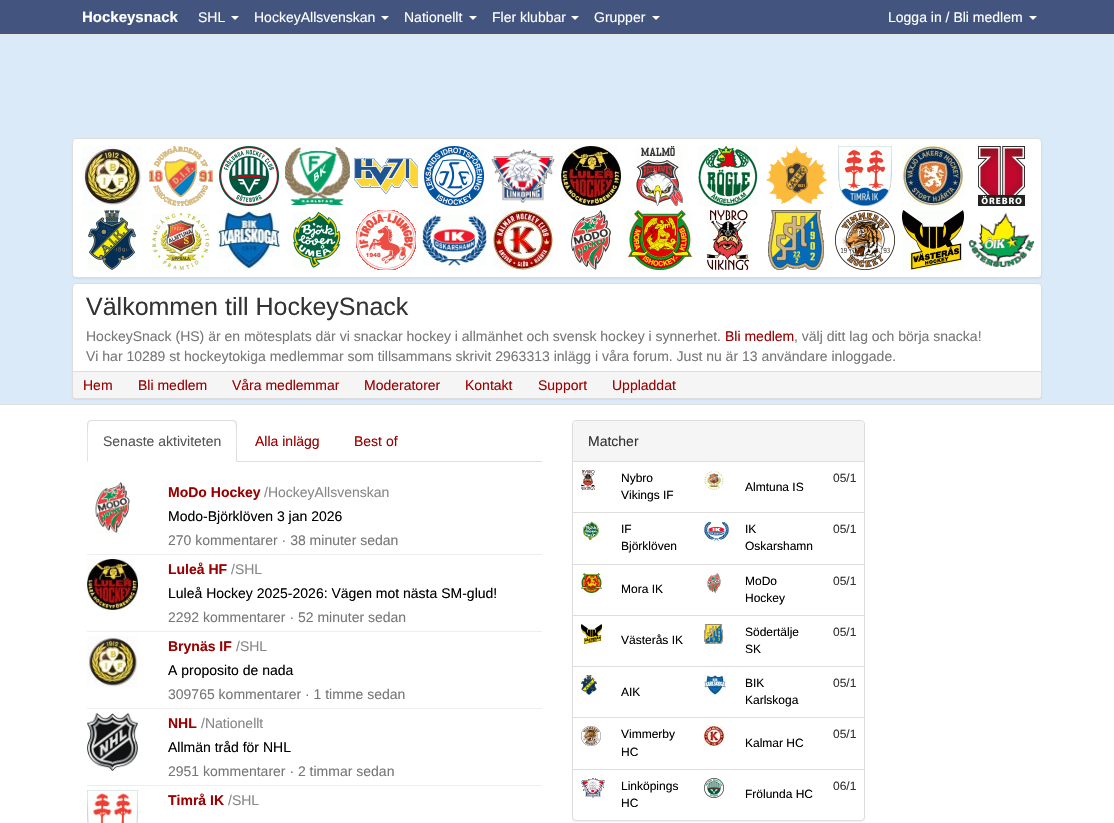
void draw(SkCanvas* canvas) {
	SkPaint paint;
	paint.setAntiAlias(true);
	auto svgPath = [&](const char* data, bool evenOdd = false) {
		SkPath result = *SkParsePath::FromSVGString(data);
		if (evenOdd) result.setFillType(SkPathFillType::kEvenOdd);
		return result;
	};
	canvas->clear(0xffffffff);
	paint.setColor(0xff43557f);
	canvas->drawRect(SkRect::MakeXYWH(0, 0, 1114, 34), paint);
	paint.setColor(0xffe7e7e7);
	canvas->drawRect(SkRect::MakeXYWH(0, 34, 1114, 1), paint);
	SkFont f1(fontMgr->matchFamilyStyle("Liberation Sans", SkFontStyle::Bold()), 15);
	f1.setSubpixel(true);
	paint.setColor(0xffffffff);
	canvas->drawString("Hockeysnack", 82, 22, f1, paint);
	SkFont f2(fontMgr->matchFamilyStyle("Liberation Sans", SkFontStyle::Normal()), 14);
	f2.setSubpixel(true);
	canvas->drawString("SHL", 198, 22, f2, paint);
	canvas->drawPath(svgPath("M231 16H239L235 20Z"), paint);
	canvas->drawString("HockeyAllsvenskan", 254, 22, f2, paint);
	canvas->drawPath(svgPath("M381 16H389L385 20Z"), paint);
	canvas->drawString("Nationellt", 404, 22, f2, paint);
	canvas->drawPath(svgPath("M469 16H477L473 20Z"), paint);
	canvas->drawString("Fler klubbar", 492, 22, f2, paint);
	canvas->drawPath(svgPath("M571 16H579L575 20Z"), paint);
	canvas->drawString("Grupper", 594, 22, f2, paint);
	canvas->drawPath(svgPath("M652 16H660L656 20Z"), paint);
	canvas->drawString("Logga in / Bli medlem", 888, 22, f2, paint);
	canvas->drawPath(svgPath("M1029 16H1037L1033 20Z"), paint);
	paint.setColor(0xffdbeaf9);
	canvas->drawRect(SkRect::MakeXYWH(0, 35, 1114, 369), paint);
	paint.setColor(0xffdfdfdf);
	canvas->drawRect(SkRect::MakeXYWH(0, 404, 1114, 1), paint);
	paint.setColor(0x0d000000);
	paint.setMaskFilter(SkMaskFilter::MakeBlur(kNormal_SkBlurStyle, 0.5));
	canvas->drawRoundRect(SkRect::MakeXYWH(72, 139, 970, 140), 4, 4, paint);
	paint.setMaskFilter(nullptr);
	paint.setColor(0xffffffff);
	canvas->drawRoundRect(SkRect::MakeXYWH(72.5, 138.5, 969, 139), 3.5, 3.5, paint);
	paint.setStroke(true);
	paint.setStrokeWidth(1);
	paint.setColor(0xffdddddd);
	canvas->drawRoundRect(SkRect::MakeXYWH(72.5, 138.5, 969, 139), 3.5, 3.5, paint);
	canvas->drawImageRect(SkImages::DeferredFromEncodedData(SkData::MakeFromFileName("img1.png")), SkRect::MakeXYWH(82, 146, 60, 60), SkSamplingOptions());
	canvas->drawImageRect(SkImages::DeferredFromEncodedData(SkData::MakeFromFileName("img2.png")), SkRect::MakeXYWH(149, 146, 64, 60), SkSamplingOptions());
	canvas->drawImageRect(SkImages::DeferredFromEncodedData(SkData::MakeFromFileName("img3.png")), SkRect::MakeXYWH(219, 146, 60, 60), SkSamplingOptions());
	canvas->drawImageRect(SkImages::DeferredFromEncodedData(SkData::MakeFromFileName("img4.png")), SkRect::MakeXYWH(285, 147, 65, 58), SkSamplingOptions());
	canvas->drawImageRect(SkImages::DeferredFromEncodedData(SkData::MakeFromFileName("img5.png")), SkRect::MakeXYWH(354, 158, 64, 36), SkSamplingOptions());
	canvas->drawImageRect(SkImages::DeferredFromEncodedData(SkData::MakeFromFileName("img6.png")), SkRect::MakeXYWH(424, 146, 60, 60), SkSamplingOptions());
	canvas->drawImageRect(SkImages::DeferredFromEncodedData(SkData::MakeFromFileName("img7.png")), SkRect::MakeXYWH(491, 149, 64, 54), SkSamplingOptions());
	canvas->drawImageRect(SkImages::DeferredFromEncodedData(SkData::MakeFromFileName("img8.png")), SkRect::MakeXYWH(561, 146, 60, 60), SkSamplingOptions());
	canvas->drawImageRect(SkImages::DeferredFromEncodedData(SkData::MakeFromFileName("img9.png")), SkRect::MakeXYWH(636, 146, 47, 60), SkSamplingOptions());
	canvas->drawImageRect(SkImages::DeferredFromEncodedData(SkData::MakeFromFileName("img10.png")), SkRect::MakeXYWH(698, 146, 60, 60), SkSamplingOptions());
	canvas->drawImageRect(SkImages::DeferredFromEncodedData(SkData::MakeFromFileName("img11.png")), SkRect::MakeXYWH(766, 146, 61, 58), SkSamplingOptions());
	canvas->drawImageRect(SkImages::DeferredFromEncodedData(SkData::MakeFromFileName("img12.png")), SkRect::MakeXYWH(838, 146, 54, 60), SkSamplingOptions());
	canvas->drawImageRect(SkImages::DeferredFromEncodedData(SkData::MakeFromFileName("img13.png")), SkRect::MakeXYWH(902, 146, 62, 60), SkSamplingOptions());
	canvas->drawImageRect(SkImages::DeferredFromEncodedData(SkData::MakeFromFileName("img14.png")), SkRect::MakeXYWH(978, 146, 47, 60), SkSamplingOptions());
	canvas->drawImageRect(SkImages::DeferredFromEncodedData(SkData::MakeFromFileName("img15.png")), SkRect::MakeXYWH(88, 210, 48, 60), SkSamplingOptions());
	canvas->drawImageRect(SkImages::DeferredFromEncodedData(SkData::MakeFromFileName("img16.png")), SkRect::MakeXYWH(152, 213, 58, 57), SkSamplingOptions());
	canvas->drawImageRect(SkImages::DeferredFromEncodedData(SkData::MakeFromFileName("img17.png")), SkRect::MakeXYWH(217, 210, 64, 60), SkSamplingOptions());
	canvas->drawImageRect(SkImages::DeferredFromEncodedData(SkData::MakeFromFileName("img18.png")), SkRect::MakeXYWH(293, 212, 48, 56), SkSamplingOptions());
	canvas->drawImageRect(SkImages::DeferredFromEncodedData(SkData::MakeFromFileName("img19.png")), SkRect::MakeXYWH(356, 210, 60, 60), SkSamplingOptions());
	canvas->drawImageRect(SkImages::DeferredFromEncodedData(SkData::MakeFromFileName("img20.png")), SkRect::MakeXYWH(422, 214, 65, 52), SkSamplingOptions());
	canvas->drawImageRect(SkImages::DeferredFromEncodedData(SkData::MakeFromFileName("img21.png")), SkRect::MakeXYWH(493, 210, 60, 60), SkSamplingOptions());
	canvas->drawImageRect(SkImages::DeferredFromEncodedData(SkData::MakeFromFileName("img22.png")), SkRect::MakeXYWH(571, 210, 40, 60), SkSamplingOptions());
	canvas->drawImageRect(SkImages::DeferredFromEncodedData(SkData::MakeFromFileName("img23.png")), SkRect::MakeXYWH(628, 210, 64, 60), SkSamplingOptions());
	canvas->drawImageRect(SkImages::DeferredFromEncodedData(SkData::MakeFromFileName("img24.png")), SkRect::MakeXYWH(707, 210, 42, 60), SkSamplingOptions());
	canvas->drawImageRect(SkImages::DeferredFromEncodedData(SkData::MakeFromFileName("img25.png")), SkRect::MakeXYWH(768, 210, 56, 60), SkSamplingOptions());
	canvas->drawImageRect(SkImages::DeferredFromEncodedData(SkData::MakeFromFileName("img26.png")), SkRect::MakeXYWH(835, 210, 60, 60), SkSamplingOptions());
	canvas->drawImageRect(SkImages::DeferredFromEncodedData(SkData::MakeFromFileName("img27.png")), SkRect::MakeXYWH(902, 210, 62, 60), SkSamplingOptions());
	canvas->drawImageRect(SkImages::DeferredFromEncodedData(SkData::MakeFromFileName("img28.png")), SkRect::MakeXYWH(969, 213, 65, 54), SkSamplingOptions());
	paint.setStroke(false);
	paint.setColor(0x0d000000);
	paint.setMaskFilter(SkMaskFilter::MakeBlur(kNormal_SkBlurStyle, 0.5));
	canvas->drawRoundRect(SkRect::MakeXYWH(72, 284, 970, 116), 4, 4, paint);
	paint.setMaskFilter(nullptr);
	paint.setColor(0xffffffff);
	canvas->drawRoundRect(SkRect::MakeXYWH(72.5, 283.5, 969, 115), 3.5, 3.5, paint);
	paint.setStroke(true);
	paint.setColor(0xffdddddd);
	canvas->drawRoundRect(SkRect::MakeXYWH(72.5, 283.5, 969, 115), 3.5, 3.5, paint);
	SkFont f3(fontMgr->matchFamilyStyle("Liberation Sans", SkFontStyle::Normal()), 25);
	f3.setSubpixel(true);
	paint.setStroke(false);
	paint.setColor(0xff333333);
	canvas->drawString("Välkommen till HockeySnack", 86, 315, f3, paint);
	paint.setColor(0xff777777);
	canvas->drawString("HockeySnack (HS) är en mötesplats där vi snackar hockey i allmänhet och svensk hockey i synnerhet.", 86, 341, f2, paint);
	paint.setColor(0xff9b0000);
	canvas->drawString("Bli medlem", 725, 341, f2, paint);
	paint.setColor(0xff777777);
	canvas->drawString(", välj ditt lag och börja snacka!", 794, 341, f2, paint);
	canvas->drawString("Vi har 10289 st hockeytokiga medlemmar som tillsammans skrivit 2963313 inlägg i våra forum. Just nu är 13 användare inloggade.", 86, 361, f2, paint);
	paint.setColor(0xfff5f5f5);
	canvas->drawPath(svgPath("M73 371H1041V395C1041 396.5 1039.5 398 1038 398H76C74.5 398 73 396.5 73 395Z"), paint);
	paint.setColor(0xffdddddd);
	canvas->drawRect(SkRect::MakeXYWH(73, 371, 968, 1), paint);
	paint.setColor(0xff9b0000);
	canvas->drawString("Hem", 83, 390, f2, paint);
	canvas->drawString("Bli medlem", 138, 390, f2, paint);
	canvas->drawString("Våra medlemmar", 232, 390, f2, paint);
	canvas->drawString("Moderatorer", 364, 390, f2, paint);
	canvas->drawString("Kontakt", 465, 390, f2, paint);
	canvas->drawString("Support", 538, 390, f2, paint);
	canvas->drawString("Uppladdat", 612, 390, f2, paint);
	paint.setColor(0xffdddddd);
	canvas->drawRect(SkRect::MakeXYWH(237, 461, 305, 1), paint);
	canvas->drawPath(svgPath("M91 420L88 421L89 422L91 421H233L235 422L236 421L233 420Z"), paint);
	canvas->drawPath(svgPath("M237 462V424C237 423 236 422 236 421L235 422C237 424 236 456 236 461Z"), paint);
	canvas->drawPath(svgPath("M87 462L88 461C88 456 87 424 89 422L88 421L87 424Z"), paint);
	paint.setColor(0xff555555);
	canvas->drawString("Senaste aktiviteten", 103, 446, f2, paint);
	paint.setColor(0xff9b0000);
	canvas->drawString("Alla inlägg", 255, 446, f2, paint);
	canvas->drawString("Best of", 354, 446, f2, paint);
	canvas->drawImageRect(SkImages::DeferredFromEncodedData(SkData::MakeFromFileName("img29.png")), SkRect::MakeXYWH(95, 482, 35, 51), SkSamplingOptions());
	SkFont f4(fontMgr->matchFamilyStyle("Liberation Sans", SkFontStyle::Bold()), 14);
	f4.setSubpixel(true);
	canvas->drawString("MoDo Hockey", 168, 497, f4, paint);
	paint.setColor(0xff888888);
	canvas->drawString("/HockeyAllsvenskan", 264, 497, f2, paint);
	paint.setColor(0xff000000);
	canvas->drawString("Modo-Björklöven 3 jan 2026", 168, 521, f2, paint);
	paint.setColor(0xff777777);
	canvas->drawString("270 kommentarer · 38 minuter sedan", 168, 545, f2, paint);
	paint.setColor(0xffeeeeee);
	canvas->drawRect(SkRect::MakeXYWH(87, 554, 455, 1), paint);
	canvas->drawImageRect(SkImages::DeferredFromEncodedData(SkData::MakeFromFileName("img30.png")), SkRect::MakeXYWH(87, 559, 51, 51), SkSamplingOptions());
	paint.setColor(0xff9b0000);
	canvas->drawString("Luleå HF", 168, 574, f4, paint);
	paint.setColor(0xff888888);
	canvas->drawString("/SHL", 231, 574, f2, paint);
	paint.setColor(0xff000000);
	canvas->drawString("Luleå Hockey 2025-2026: Vägen mot nästa SM-glud!", 168, 598, f2, paint);
	paint.setColor(0xff777777);
	canvas->drawString("2292 kommentarer · 52 minuter sedan", 168, 622, f2, paint);
	paint.setColor(0xffeeeeee);
	canvas->drawRect(SkRect::MakeXYWH(87, 631, 455, 1), paint);
	canvas->drawImageRect(SkImages::DeferredFromEncodedData(SkData::MakeFromFileName("img31.png")), SkRect::MakeXYWH(87, 636, 51, 51), SkSamplingOptions());
	paint.setColor(0xff9b0000);
	canvas->drawString("Brynäs IF", 168, 651, f4, paint);
	paint.setColor(0xff888888);
	canvas->drawString("/SHL", 236, 651, f2, paint);
	paint.setColor(0xff000000);
	canvas->drawString("A proposito de nada", 168, 675, f2, paint);
	paint.setColor(0xff777777);
	canvas->drawString("309765 kommentarer · 1 timme sedan", 168, 699, f2, paint);
	paint.setColor(0xffeeeeee);
	canvas->drawRect(SkRect::MakeXYWH(87, 708, 455, 1), paint);
	canvas->drawImageRect(SkImages::DeferredFromEncodedData(SkData::MakeFromFileName("img32.png")), SkRect::MakeXYWH(87, 713, 51, 58), SkSamplingOptions());
	paint.setColor(0xff9b0000);
	canvas->drawString("NHL", 168, 728, f4, paint);
	paint.setColor(0xff888888);
	canvas->drawString("/Nationellt", 201, 728, f2, paint);
	paint.setColor(0xff000000);
	canvas->drawString("Allmän tråd för NHL", 168, 752, f2, paint);
	paint.setColor(0xff777777);
	canvas->drawString("2951 kommentarer · 2 timmar sedan", 168, 776, f2, paint);
	paint.setColor(0xffeeeeee);
	canvas->drawRect(SkRect::MakeXYWH(87, 785, 455, 1), paint);
	canvas->drawImageRect(SkImages::DeferredFromEncodedData(SkData::MakeFromFileName("img33.png")), SkRect::MakeXYWH(87, 790, 51, 33), SkSamplingOptions());
	paint.setColor(0xff9b0000);
	canvas->drawString("Timrå IK", 168, 805, f4, paint);
	paint.setColor(0xff888888);
	canvas->drawString("/SHL", 228, 805, f2, paint);
	paint.setColor(0x0d000000);
	paint.setMaskFilter(SkMaskFilter::MakeBlur(kNormal_SkBlurStyle, 0.5));
	canvas->drawRoundRect(SkRect::MakeXYWH(572, 421, 293, 401), 4, 4, paint);
	paint.setMaskFilter(nullptr);
	paint.setColor(0xffffffff);
	canvas->drawRoundRect(SkRect::MakeXYWH(572.5, 420.5, 292, 400), 3.5, 3.5, paint);
	paint.setStroke(true);
	paint.setColor(0xffdddddd);
	canvas->drawRoundRect(SkRect::MakeXYWH(572.5, 420.5, 292, 400), 3.5, 3.5, paint);
	paint.setStroke(false);
	paint.setColor(0xfff5f5f5);
	canvas->drawPath(svgPath("M576 421H861C862.5 421 864 422.5 864 424V462H573V424C573 422.5 574.5 421 576 421Z"), paint);
	paint.setColor(0xffdddddd);
	canvas->drawRect(SkRect::MakeXYWH(573, 461, 291, 1), paint);
	paint.setColor(0xff333333);
	canvas->drawString("Matcher", 588, 446, f2, paint);
	canvas->drawImageRect(SkImages::DeferredFromEncodedData(SkData::MakeFromFileName("img34.png")), SkRect::MakeXYWH(581, 470, 14, 20), SkSamplingOptions());
	SkFont f5(fontMgr->matchFamilyStyle("Liberation Sans", SkFontStyle::Normal()), 12);
	f5.setSubpixel(true);
	paint.setColor(0xff000000);
	canvas->drawString("Nybro", 621, 482, f5, paint);
	canvas->drawString("Vikings IF", 621, 499, f5, paint);
	canvas->drawImageRect(SkImages::DeferredFromEncodedData(SkData::MakeFromFileName("img35.png")), SkRect::MakeXYWH(704, 471, 20, 19), SkSamplingOptions());
	paint.setColor(0xff333333);
	canvas->drawString("05/1", 833, 482, f5, paint);
	paint.setColor(0xff000000);
	canvas->drawString("Almtuna IS", 745, 491, f5, paint);
	canvas->drawImageRect(SkImages::DeferredFromEncodedData(SkData::MakeFromFileName("img36.png")), SkRect::MakeXYWH(583, 521, 16, 20), SkSamplingOptions());
	canvas->drawString("IF", 621, 533, f5, paint);
	canvas->drawString("Björklöven", 621, 550, f5, paint);
	canvas->drawImageRect(SkImages::DeferredFromEncodedData(SkData::MakeFromFileName("img37.png")), SkRect::MakeXYWH(704, 521, 25, 20), SkSamplingOptions());
	canvas->drawString("IK", 745, 533, f5, paint);
	canvas->drawString("Oskarshamn", 745, 550, f5, paint);
	paint.setColor(0xffdddddd);
	canvas->drawRect(SkRect::MakeXYWH(573, 512, 291, 1), paint);
	paint.setColor(0xff333333);
	canvas->drawString("05/1", 833, 533, f5, paint);
	canvas->drawImageRect(SkImages::DeferredFromEncodedData(SkData::MakeFromFileName("img38.png")), SkRect::MakeXYWH(581, 573, 21, 20), SkSamplingOptions());
	canvas->drawImageRect(SkImages::DeferredFromEncodedData(SkData::MakeFromFileName("img39.png")), SkRect::MakeXYWH(707, 573, 14, 20), SkSamplingOptions());
	paint.setColor(0xff000000);
	canvas->drawString("MoDo", 745, 585, f5, paint);
	canvas->drawString("Hockey", 745, 602, f5, paint);
	paint.setColor(0xffdddddd);
	canvas->drawRect(SkRect::MakeXYWH(573, 564, 291, 1), paint);
	paint.setColor(0xff333333);
	canvas->drawString("05/1", 833, 585, f5, paint);
	paint.setColor(0xff000000);
	canvas->drawString("Mora IK", 621, 593, f5, paint);
	canvas->drawImageRect(SkImages::DeferredFromEncodedData(SkData::MakeFromFileName("img40.png")), SkRect::MakeXYWH(581, 624, 21, 20), SkSamplingOptions());
	canvas->drawImageRect(SkImages::DeferredFromEncodedData(SkData::MakeFromFileName("img41.png")), SkRect::MakeXYWH(704, 624, 19, 20), SkSamplingOptions());
	canvas->drawString("Södertälje", 745, 636, f5, paint);
	canvas->drawString("SK", 745, 653, f5, paint);
	paint.setColor(0xffdddddd);
	canvas->drawRect(SkRect::MakeXYWH(573, 615, 291, 1), paint);
	paint.setColor(0xff333333);
	canvas->drawString("05/1", 833, 636, f5, paint);
	paint.setColor(0xff000000);
	canvas->drawString("Västerås IK", 621, 644, f5, paint);
	canvas->drawImageRect(SkImages::DeferredFromEncodedData(SkData::MakeFromFileName("img42.png")), SkRect::MakeXYWH(581, 675, 16, 20), SkSamplingOptions());
	canvas->drawImageRect(SkImages::DeferredFromEncodedData(SkData::MakeFromFileName("img43.png")), SkRect::MakeXYWH(704, 675, 22, 20), SkSamplingOptions());
	canvas->drawString("BIK", 745, 687, f5, paint);
	canvas->drawString("Karlskoga", 745, 704, f5, paint);
	paint.setColor(0xffdddddd);
	canvas->drawRect(SkRect::MakeXYWH(573, 666, 291, 1), paint);
	paint.setColor(0xff333333);
	canvas->drawString("05/1", 833, 687, f5, paint);
	paint.setColor(0xff000000);
	canvas->drawString("AIK", 621, 696, f5, paint);
	canvas->drawImageRect(SkImages::DeferredFromEncodedData(SkData::MakeFromFileName("img44.png")), SkRect::MakeXYWH(581, 726, 20, 20), SkSamplingOptions());
	canvas->drawString("Vimmerby", 621, 738, f5, paint);
	canvas->drawString("HC", 621, 756, f5, paint);
	canvas->drawImageRect(SkImages::DeferredFromEncodedData(SkData::MakeFromFileName("img45.png")), SkRect::MakeXYWH(704, 726, 20, 20), SkSamplingOptions());
	paint.setColor(0xffdddddd);
	canvas->drawRect(SkRect::MakeXYWH(573, 717, 291, 1), paint);
	paint.setColor(0xff333333);
	canvas->drawString("05/1", 833, 738, f5, paint);
	paint.setColor(0xff000000);
	canvas->drawString("Kalmar HC", 745, 747, f5, paint);
	canvas->drawImageRect(SkImages::DeferredFromEncodedData(SkData::MakeFromFileName("img46.png")), SkRect::MakeXYWH(581, 778, 24, 20), SkSamplingOptions());
	canvas->drawString("Linköpings", 621, 790, f5, paint);
	canvas->drawString("HC", 621, 807, f5, paint);
	canvas->drawImageRect(SkImages::DeferredFromEncodedData(SkData::MakeFromFileName("img47.png")), SkRect::MakeXYWH(704, 778, 20, 20), SkSamplingOptions());
	paint.setColor(0xffdddddd);
	canvas->drawRect(SkRect::MakeXYWH(573, 769, 291, 1), paint);
	paint.setColor(0xff333333);
	canvas->drawString("06/1", 833, 790, f5, paint);
	paint.setColor(0xff000000);
	canvas->drawString("Frölunda HC", 745, 798, f5, paint);
}
